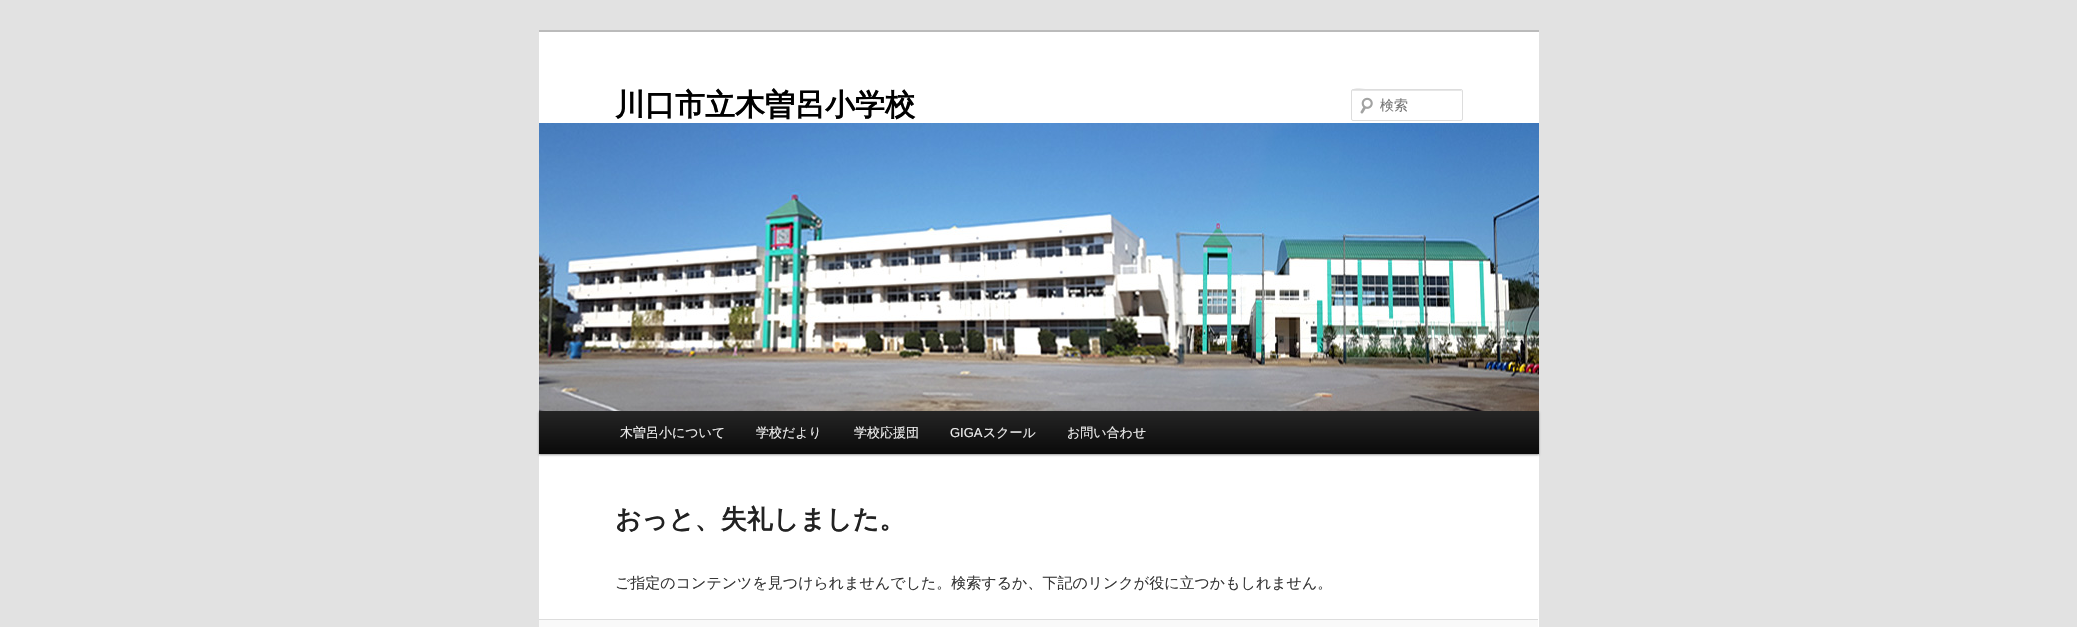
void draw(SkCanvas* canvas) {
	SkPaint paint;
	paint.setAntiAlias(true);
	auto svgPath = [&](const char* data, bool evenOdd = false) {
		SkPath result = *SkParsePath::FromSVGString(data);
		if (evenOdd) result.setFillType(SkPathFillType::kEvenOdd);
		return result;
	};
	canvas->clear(0xffe2e2e2);
	paint.setColor(0xffffffff);
	canvas->drawRect(SkRect::MakeXYWH(539, 32, 1000, 595), paint);
	paint.setColor(0xffbbbbbb);
	canvas->drawRect(SkRect::MakeXYWH(539, 30, 1000, 2), paint);
	SkFont f1(fontMgr->matchFamilyStyle("WenQuanYi Zen Hei", SkFontStyle::Bold()), 30);
	f1.setSubpixel(true);
	paint.setColor(0xff000000);
	canvas->drawString("川口市立木曽呂小学校", 615, 115, f1, paint);
	canvas->drawImageRect(SkImages::DeferredFromEncodedData(SkData::MakeFromFileName("img1.png")), SkRect::MakeXYWH(1360, 97, 13, 17), SkSamplingOptions());
	paint.setColor(0xffe6e6e6);
	canvas->drawPath(svgPath("M1353 91H1462V92L1461 90H1371C1367 90 1352 85 1352 92C1352 91 1352 91 1353 91Z"), paint);
	paint.setStroke(true);
	paint.setStrokeWidth(1);
	paint.setColor(0xffdddddd);
	canvas->drawRoundRect(SkRect::MakeXYWH(1351.5, 89.5, 111, 31), 1.5, 1.5, paint);
	SkFont f2(fontMgr->matchFamilyStyle("WenQuanYi Zen Hei", SkFontStyle(500, SkFontStyle::kNormal_Width, SkFontStyle::kUpright_Slant)), 14);
	f2.setSubpixel(true);
	paint.setStroke(false);
	paint.setColor(0xff757575);
	canvas->drawString("検索", 1380, 110, f2, paint);
	paint.setColor(0x66000000);
	paint.setMaskFilter(SkMaskFilter::MakeBlur(kNormal_SkBlurStyle, 1));
	canvas->drawRect(SkRect::MakeXYWH(539, 412, 1000, 43), paint);
	paint.setMaskFilter(nullptr);
	canvas->drawImageRect(SkImages::DeferredFromEncodedData(SkData::MakeFromFileName("img2.png")), SkRect::MakeXYWH(539, 123, 1000, 288), SkSamplingOptions());
	{
		const SkColor colors[] = {0xff252525, 0xff0a0a0a};
		const float stops[] = {0, 1};
		const SkPoint ends[] = {{1039, 411}, {1039, 454}};
		paint.setShader(SkGradientShader::MakeLinear(ends, colors, stops, 2, SkTileMode::kClamp));
		paint.setAlpha(255);
	}
	canvas->drawRect(SkRect::MakeXYWH(539, 411, 1000, 43), paint);
	SkFont f3(fontMgr->matchFamilyStyle("WenQuanYi Zen Hei", SkFontStyle(500, SkFontStyle::kNormal_Width, SkFontStyle::kUpright_Slant)), 13);
	f3.setSubpixel(true);
	paint.setShader(nullptr);
	paint.setColor(0xffeeeeee);
	canvas->drawString("木曽呂小について", 620, 437, f3, paint);
	canvas->drawString("学校だより", 756, 437, f3, paint);
	canvas->drawString("学校応援団", 854, 437, f3, paint);
	SkFont f4(fontMgr->matchFamilyStyle("Liberation Sans", SkFontStyle::Normal()), 13);
	f4.setSubpixel(true);
	canvas->drawString("GIGA", 950, 437, f4, paint);
	canvas->drawString("スクール", 983, 437, f3, paint);
	canvas->drawString("お問い合わせ", 1067, 437, f3, paint);
	SkFont f5(fontMgr->matchFamilyStyle("WenQuanYi Zen Hei", SkFontStyle::Bold()), 26);
	f5.setSubpixel(true);
	paint.setColor(0xff222222);
	canvas->drawString("おっと、失礼しました。", 615, 528, f5, paint);
	SkFont f6(fontMgr->matchFamilyStyle("WenQuanYi Zen Hei", SkFontStyle(500, SkFontStyle::kNormal_Width, SkFontStyle::kUpright_Slant)), 15);
	f6.setSubpixel(true);
	paint.setColor(0xff373737);
	canvas->drawString("ご指定のコンテンツを見つけられませんでした。検索するか、下記のリンクが役に立つかもしれません。", 615, 588, f6, paint);
	paint.setColor(0xfff9f9f9);
	canvas->drawRect(SkRect::MakeXYWH(539, 620, 999, 7), paint);
	paint.setColor(0xffdddddd);
	canvas->drawRect(SkRect::MakeXYWH(539, 619, 999, 1), paint);
}
